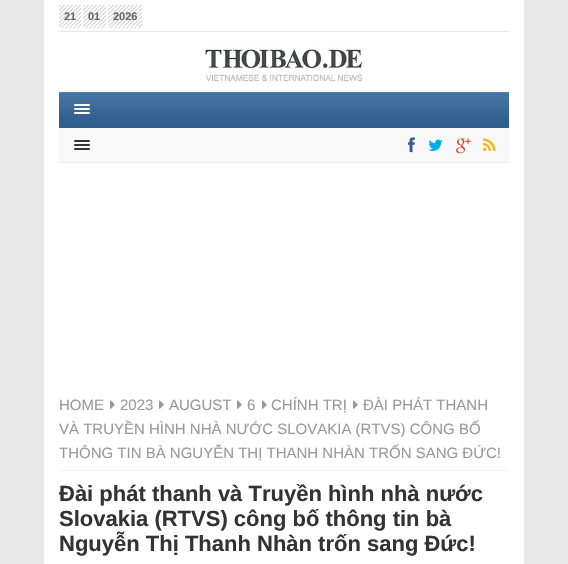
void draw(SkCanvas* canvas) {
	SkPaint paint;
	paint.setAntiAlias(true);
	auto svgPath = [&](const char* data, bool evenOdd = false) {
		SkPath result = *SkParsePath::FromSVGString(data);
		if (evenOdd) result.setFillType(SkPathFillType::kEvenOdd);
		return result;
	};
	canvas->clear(0xffe9e9e9);
	paint.setColor(0xffffffff);
	canvas->drawRect(SkRect::MakeXYWH(44, 0, 480, 564), paint);
	paint.setColor(0xffe9e9e9);
	canvas->drawRect(SkRect::MakeXYWH(59, 31, 450, 1), paint);
	canvas->drawImageRect(SkImages::DeferredFromEncodedData(SkData::MakeFromFileName("img1.png")), SkRect::MakeXYWH(59, 5, 22, 23), SkSamplingOptions());
	SkFont f1(fontMgr->matchFamilyStyle("Liberation Sans", SkFontStyle::Bold()), 11);
	f1.setSubpixel(true);
	paint.setColor(0xff666666);
	canvas->drawString("21", 64, 20, f1, paint);
	canvas->drawImageRect(SkImages::DeferredFromEncodedData(SkData::MakeFromFileName("img2.png")), SkRect::MakeXYWH(83, 5, 23, 23), SkSamplingOptions());
	canvas->drawString("01", 88, 20, f1, paint);
	canvas->drawImageRect(SkImages::DeferredFromEncodedData(SkData::MakeFromFileName("img3.png")), SkRect::MakeXYWH(108, 5, 34, 23), SkSamplingOptions());
	canvas->drawString("2026", 113, 20, f1, paint);
	canvas->drawImageRect(SkImages::DeferredFromEncodedData(SkData::MakeFromFileName("img4.png")), SkRect::MakeXYWH(205, 47, 160, 35), SkSamplingOptions());
	paint.setColor(0xff336699);
	canvas->drawRect(SkRect::MakeXYWH(59, 92, 450, 36), paint);
	canvas->drawImageRect(SkImages::DeferredFromEncodedData(SkData::MakeFromFileName("img5.png")), SkRect::MakeXYWH(59, 92, 450, 36), SkSamplingOptions());
	paint.setColor(0xffffffff);
	canvas->drawRoundRect(SkRect::MakeXYWH(74, 104, 16, 2), 1, 1, paint);
	canvas->drawRoundRect(SkRect::MakeXYWH(74, 108, 16, 2), 1, 1, paint);
	canvas->drawRoundRect(SkRect::MakeXYWH(74, 112, 16, 2), 1, 1, paint);
	paint.setColor(0xfff9f9f9);
	canvas->drawRect(SkRect::MakeXYWH(59, 128, 450, 34), paint);
	paint.setColor(0xffeeeeee);
	canvas->drawRect(SkRect::MakeXYWH(59, 162, 450, 1), paint);
	paint.setColor(0xff333333);
	canvas->drawRoundRect(SkRect::MakeXYWH(74, 140, 16, 2), 1, 1, paint);
	canvas->drawRoundRect(SkRect::MakeXYWH(74, 144, 16, 2), 1, 1, paint);
	canvas->drawRoundRect(SkRect::MakeXYWH(74, 148, 16, 2), 1, 1, paint);
	canvas->drawImageRect(SkImages::DeferredFromEncodedData(SkData::MakeFromFileName("img6.png")), SkRect::MakeXYWH(408, 137, 7, 16), SkSamplingOptions());
	canvas->drawImageRect(SkImages::DeferredFromEncodedData(SkData::MakeFromFileName("img7.png")), SkRect::MakeXYWH(428, 139, 15, 12), SkSamplingOptions());
	canvas->drawImageRect(SkImages::DeferredFromEncodedData(SkData::MakeFromFileName("img8.png")), SkRect::MakeXYWH(456, 138, 15, 16), SkSamplingOptions());
	canvas->drawImageRect(SkImages::DeferredFromEncodedData(SkData::MakeFromFileName("img9.png")), SkRect::MakeXYWH(483, 138, 13, 13), SkSamplingOptions());
	paint.setStroke(true);
	paint.setStrokeWidth(1);
	paint.setColor(0xffe9e9e9);
	paint.setPathEffect(SkDashPathEffect::Make({{1, 1}}, 0));
	canvas->drawPath(svgPath("M59 470.5H509"), paint);
	paint.setPathEffect(nullptr);
	SkFont f2(fontMgr->matchFamilyStyle("Liberation Sans", SkFontStyle::Normal()), 15);
	f2.setSubpixel(true);
	paint.setStroke(false);
	paint.setColor(0xff999999);
	canvas->drawString("HOME", 59, 410, f2, paint);
	canvas->drawImageRect(SkImages::DeferredFromEncodedData(SkData::MakeFromFileName("img10.png")), SkRect::MakeXYWH(110, 400, 5, 9), SkSamplingOptions());
	canvas->drawString("2023", 120, 410, f2, paint);
	canvas->drawImageRect(SkImages::DeferredFromEncodedData(SkData::MakeFromFileName("img10.png")), SkRect::MakeXYWH(159, 400, 5, 9), SkSamplingOptions());
	canvas->drawString("AUGUST", 169, 410, f2, paint);
	canvas->drawImageRect(SkImages::DeferredFromEncodedData(SkData::MakeFromFileName("img10.png")), SkRect::MakeXYWH(237, 400, 5, 9), SkSamplingOptions());
	canvas->drawString("6", 247, 410, f2, paint);
	canvas->drawImageRect(SkImages::DeferredFromEncodedData(SkData::MakeFromFileName("img10.png")), SkRect::MakeXYWH(262, 400, 5, 9), SkSamplingOptions());
	canvas->drawString("CHÍNH TRỊ", 271, 410, f2, paint);
	canvas->drawImageRect(SkImages::DeferredFromEncodedData(SkData::MakeFromFileName("img10.png")), SkRect::MakeXYWH(353, 400, 5, 9), SkSamplingOptions());
	canvas->drawString("ĐÀI PHÁT THANH", 363, 410, f2, paint);
	canvas->drawString("VÀ TRUYỀN HÌNH NHÀ NƯỚC SLOVAKIA (RTVS) CÔNG BỐ", 59, 434, f2, paint);
	canvas->drawString("THÔNG TIN BÀ NGUYỄN THỊ THANH NHÀN TRỐN SANG ĐỨC!", 59, 458, f2, paint);
	SkFont f3(fontMgr->matchFamilyStyle("Liberation Sans", SkFontStyle::Bold()), 22);
	f3.setSubpixel(true);
	paint.setColor(0xff333333);
	canvas->drawString("Đài phát thanh và Truyền hình nhà nước", 59, 501, f3, paint);
	canvas->drawString("Slovakia (RTVS) công bố thông tin bà", 59, 526, f3, paint);
	canvas->drawString("Nguyễn Thị Thanh Nhàn trốn sang Đức!", 59, 551, f3, paint);
}
